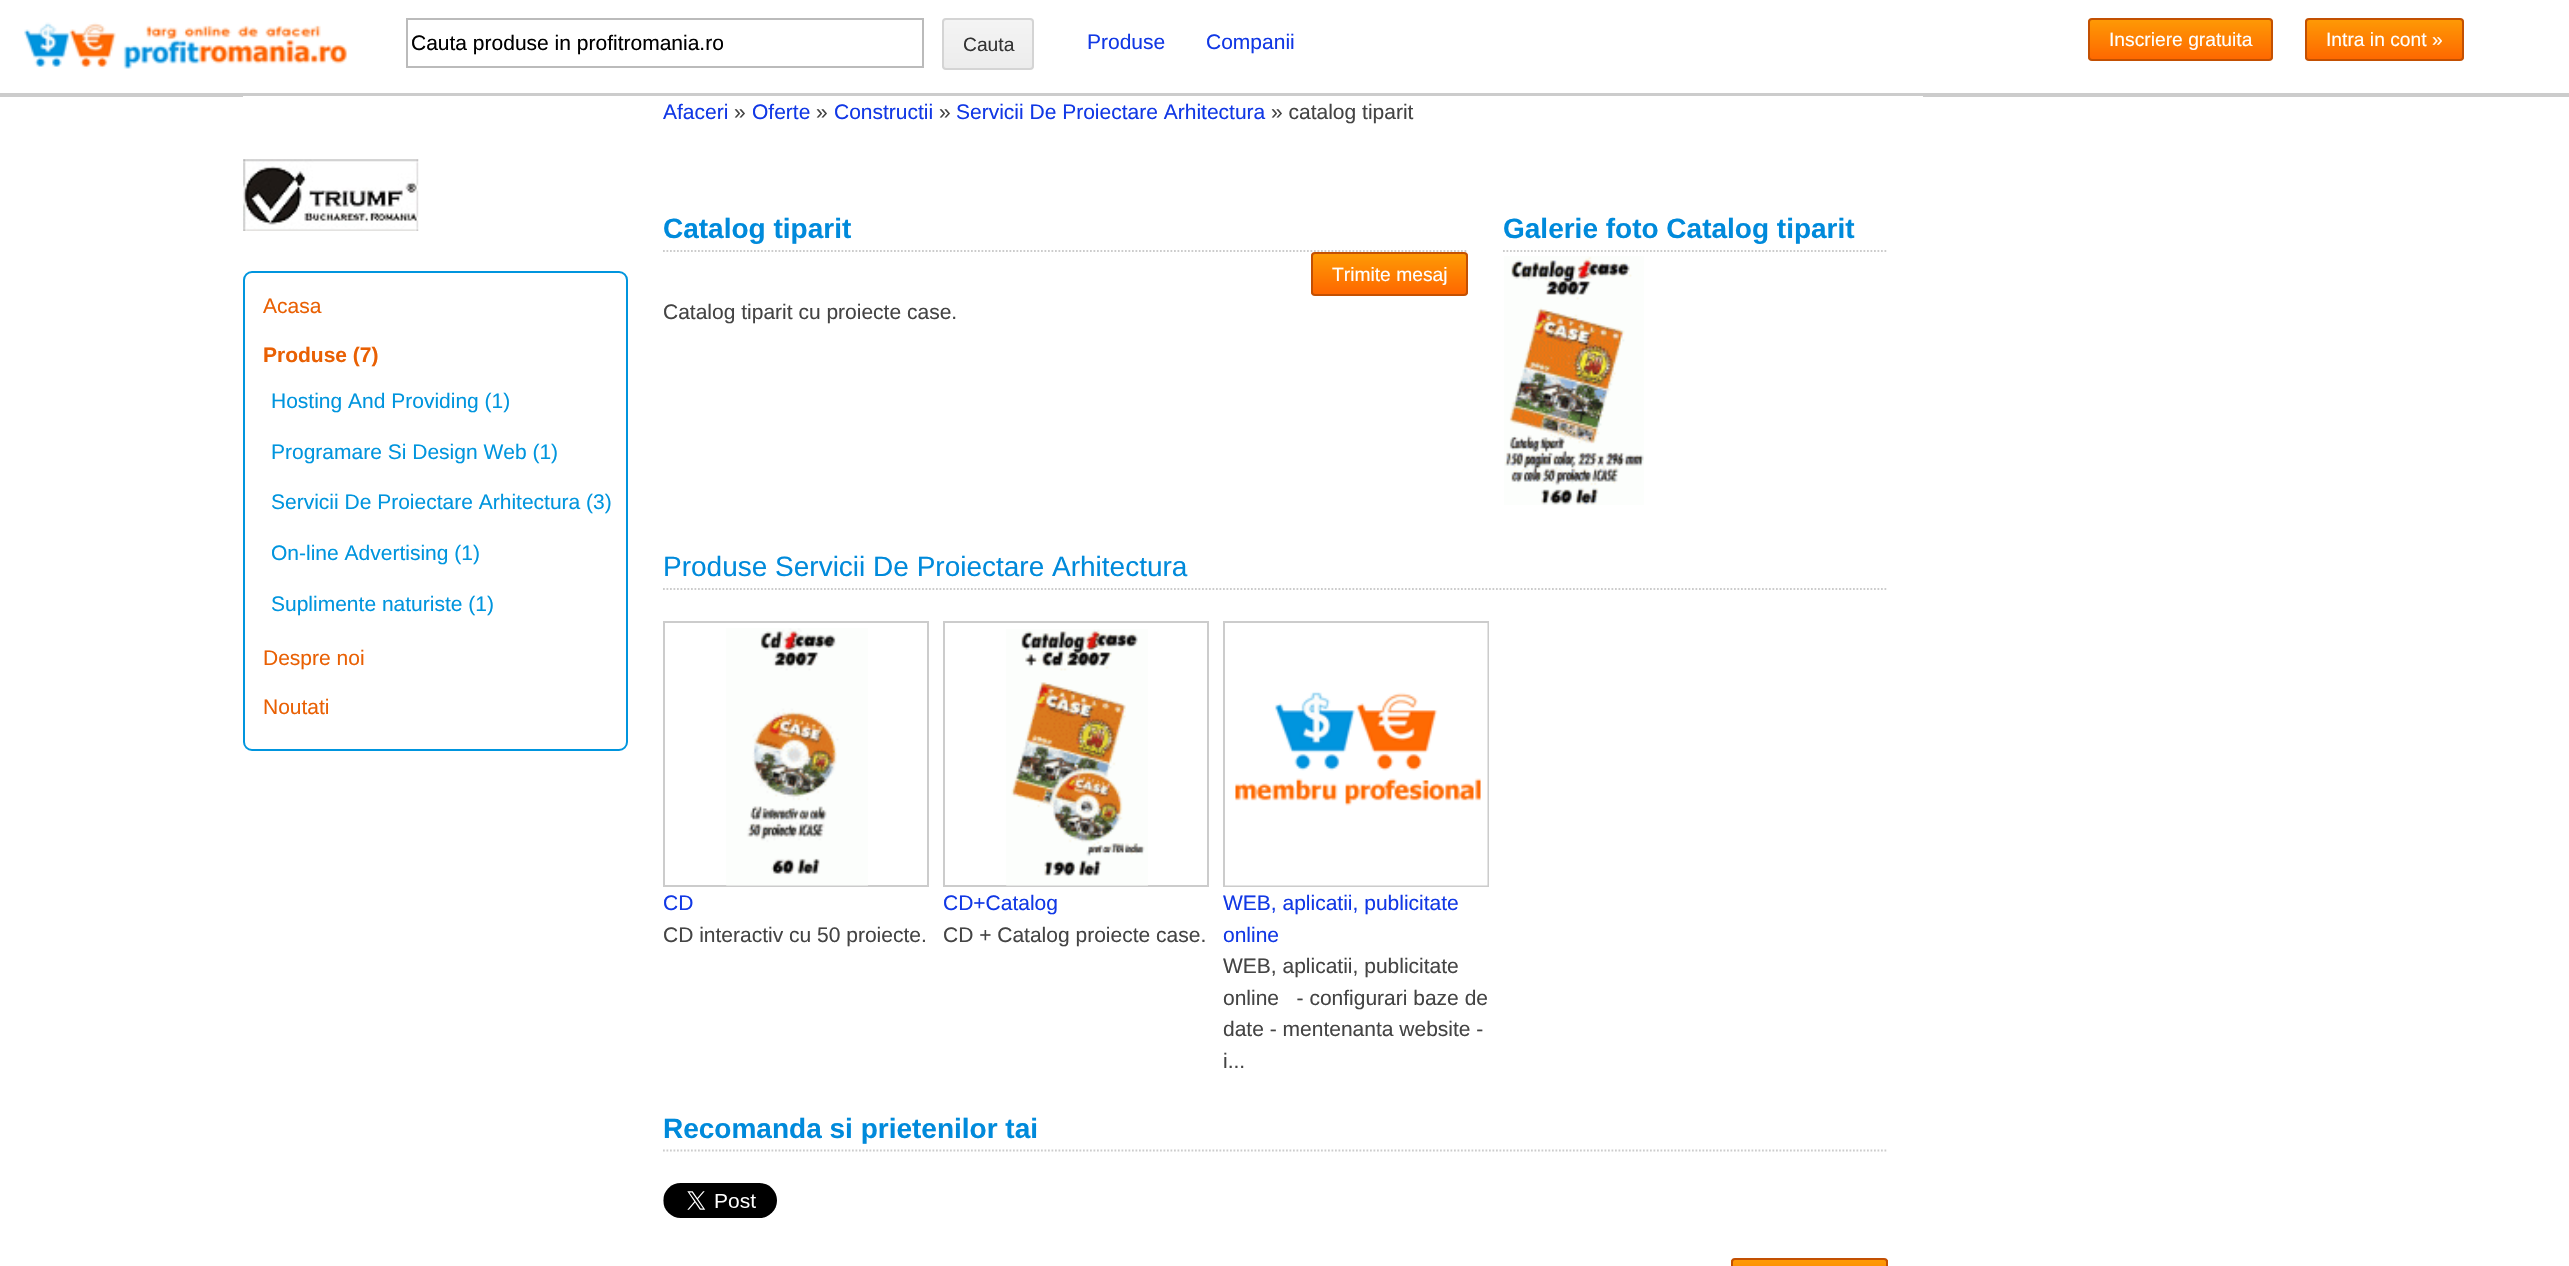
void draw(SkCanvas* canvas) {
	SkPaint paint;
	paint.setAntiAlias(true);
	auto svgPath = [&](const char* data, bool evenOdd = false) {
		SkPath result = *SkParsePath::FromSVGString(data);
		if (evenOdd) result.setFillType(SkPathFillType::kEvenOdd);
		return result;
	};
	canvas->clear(0xffffffff);
	paint.setColor(0xffcccccc);
	canvas->drawRect(SkRect::MakeXYWH(0, 93, 2569, 4), paint);
	canvas->drawImageRect(SkImages::DeferredFromEncodedData(SkData::MakeFromFileName("img1.png")), SkRect::MakeXYWH(24, 22, 324, 47), SkSamplingOptions());
	paint.setStroke(true);
	paint.setStrokeWidth(2);
	paint.setColor(0xffbbbbbb);
	canvas->drawRect(SkRect::MakeXYWH(407, 19, 516, 48), paint);
	SkFont f1(fontMgr->matchFamilyStyle("Liberation Sans", SkFontStyle::Normal()), 21);
	f1.setSubpixel(true);
	paint.setStroke(false);
	paint.setColor(0xff000000);
	canvas->drawString("Cauta produse in profitromania.ro", 411, 50, f1, paint);
	canvas->save();
	canvas->clipPath(svgPath("M946 18H1030C1032 18 1034 20 1034 22V66C1034 68 1032 70 1030 70H946C944 70 942 68 942 66V22C942 20 944 18 946 18Z"), true);
	{
		const SkColor colors[] = {0xfff4f4f4, 0xffececec};
		const float stops[] = {0, 1};
		const SkPoint ends[] = {{988, 19}, {988, 68}};
		paint.setShader(SkGradientShader::MakeLinear(ends, colors, stops, 2, SkTileMode::kClamp));
		paint.setAlpha(255);
	}
	canvas->drawRect(SkRect::MakeXYWH(942, 19, 92, 49), paint);
	canvas->restore();
	paint.setStroke(true);
	paint.setShader(nullptr);
	paint.setColor(0xffd4d4d4);
	canvas->drawRoundRect(SkRect::MakeXYWH(943, 19, 90, 50), 3, 3, paint);
	SkFont f2(fontMgr->matchFamilyStyle("Liberation Sans", SkFontStyle::Normal()), 19.25);
	f2.setSubpixel(true);
	paint.setStroke(false);
	paint.setColor(0xff333333);
	canvas->drawString("Cauta", 963, 51, f2, paint);
	paint.setColor(0xff1138e5);
	canvas->drawString("Produse", 1087, 49, f1, paint);
	canvas->drawString("Companii", 1206, 49, f1, paint);
	canvas->save();
	canvas->clipPath(svgPath("M2092 18H2269C2271 18 2273 20 2273 22V57C2273 59 2271 61 2269 61H2092C2090 61 2088 59 2088 57V22C2088 20 2090 18 2092 18Z"), true);
	{
		const SkColor colors[] = {0xfffe9a05, 0xfffe6700};
		const float stops[] = {0, 1};
		const SkPoint ends[] = {{2181, 19}, {2181, 60}};
		paint.setShader(SkGradientShader::MakeLinear(ends, colors, stops, 2, SkTileMode::kClamp));
		paint.setAlpha(255);
	}
	canvas->drawRect(SkRect::MakeXYWH(2088, 19, 185, 41), paint);
	canvas->restore();
	paint.setStroke(true);
	paint.setShader(nullptr);
	paint.setColor(0xffc35002);
	canvas->drawRoundRect(SkRect::MakeXYWH(2089, 19, 183, 41), 3, 3, paint);
	paint.setStroke(false);
	paint.setColor(0xffffffff);
	canvas->drawString("Inscriere gratuita", 2109, 46, f2, paint);
	canvas->save();
	canvas->clipPath(svgPath("M2309 18H2460C2462 18 2464 20 2464 22V57C2464 59 2462 61 2460 61H2309C2307 61 2305 59 2305 57V22C2305 20 2307 18 2309 18Z"), true);
	{
		const SkColor colors[] = {0xfffe9a05, 0xfffe6700};
		const float stops[] = {0, 1};
		const SkPoint ends[] = {{2384, 19}, {2384, 60}};
		paint.setShader(SkGradientShader::MakeLinear(ends, colors, stops, 2, SkTileMode::kClamp));
		paint.setAlpha(255);
	}
	canvas->drawRect(SkRect::MakeXYWH(2305, 19, 159, 41), paint);
	canvas->restore();
	paint.setStroke(true);
	paint.setShader(nullptr);
	paint.setColor(0xffc35002);
	canvas->drawRoundRect(SkRect::MakeXYWH(2306, 19, 157, 41), 3, 3, paint);
	paint.setStroke(false);
	paint.setColor(0xffffffff);
	canvas->drawString("Intra in cont »", 2326, 46, f2, paint);
	canvas->drawRect(SkRect::MakeXYWH(243, 96, 1680, 1), paint);
	paint.setColor(0xff1138e5);
	canvas->drawString("Afaceri", 663, 119, f1, paint);
	paint.setColor(0xff444444);
	canvas->drawString("»", 734, 119, f1, paint);
	paint.setColor(0xff1138e5);
	canvas->drawString("Oferte", 752, 119, f1, paint);
	paint.setColor(0xff444444);
	canvas->drawString("»", 816, 119, f1, paint);
	paint.setColor(0xff1138e5);
	canvas->drawString("Constructii", 834, 119, f1, paint);
	paint.setColor(0xff444444);
	canvas->drawString("»", 939, 119, f1, paint);
	paint.setColor(0xff1138e5);
	canvas->drawString("Servicii De Proiectare Arhitectura", 956, 119, f1, paint);
	paint.setColor(0xff444444);
	canvas->drawString("» catalog tiparit", 1271, 119, f1, paint);
	canvas->drawImageRect(SkImages::DeferredFromEncodedData(SkData::MakeFromFileName("img2.png")), SkRect::MakeXYWH(243, 159, 176, 72), SkSamplingOptions());
	paint.setStroke(true);
	paint.setColor(0xff0095de);
	canvas->drawRoundRect(SkRect::MakeXYWH(244, 272, 383, 478), 8, 8, paint);
	paint.setStroke(false);
	paint.setColor(0xffe96003);
	canvas->drawString("Acasa", 263, 313, f1, paint);
	SkFont f3(fontMgr->matchFamilyStyle("Liberation Sans", SkFontStyle::Bold()), 21);
	f3.setSubpixel(true);
	canvas->drawString("Produse (7)", 263, 362, f3, paint);
	paint.setColor(0xff0095de);
	canvas->drawString("Hosting And Providing (1)", 271, 408, f1, paint);
	canvas->drawString("Programare Si Design Web (1)", 271, 459, f1, paint);
	canvas->drawString("Servicii De Proiectare Arhitectura (3)", 271, 509, f1, paint);
	canvas->drawString("On-line Advertising (1)", 271, 560, f1, paint);
	canvas->drawString("Suplimente naturiste (1)", 271, 611, f1, paint);
	paint.setColor(0xffe96003);
	canvas->drawString("Despre noi", 263, 665, f1, paint);
	canvas->drawString("Noutati", 263, 714, f1, paint);
	paint.setStroke(true);
	paint.setStrokeWidth(1.8);
	paint.setColor(0xffcccccc);
	paint.setPathEffect(SkDashPathEffect::Make({{1.75f, 1.75f}}, 0));
	canvas->drawPath(svgPath("M663 251H1468"), paint);
	paint.setPathEffect(nullptr);
	SkFont f4(fontMgr->matchFamilyStyle("Liberation Sans", SkFontStyle::Bold()), 28);
	f4.setSubpixel(true);
	paint.setStroke(false);
	paint.setColor(0xff008adb);
	canvas->drawString("Catalog tiparit", 663, 238, f4, paint);
	canvas->save();
	canvas->clipPath(svgPath("M1315 252H1464C1466 252 1468 254 1468 256V292C1468 294 1466 296 1464 296H1315C1313 296 1311 294 1311 292V256C1311 254 1313 252 1315 252Z"), true);
	{
		const SkColor colors[] = {0xfffe9a05, 0xfffe6700};
		const float stops[] = {0, 1};
		const SkPoint ends[] = {{1390, 254}, {1390, 294}};
		paint.setShader(SkGradientShader::MakeLinear(ends, colors, stops, 2, SkTileMode::kClamp));
		paint.setAlpha(255);
	}
	canvas->drawRect(SkRect::MakeXYWH(1311, 254, 157, 40), paint);
	canvas->restore();
	paint.setStroke(true);
	paint.setStrokeWidth(2);
	paint.setShader(nullptr);
	paint.setColor(0xffc35002);
	canvas->drawRoundRect(SkRect::MakeXYWH(1312, 253, 155, 42), 3, 3, paint);
	paint.setStroke(false);
	paint.setColor(0xffffffff);
	canvas->drawString("Trimite mesaj", 1332, 281, f2, paint);
	paint.setColor(0xff444444);
	canvas->drawString("Catalog tiparit cu proiecte case.", 663, 319, f1, paint);
	paint.setStroke(true);
	paint.setStrokeWidth(1.8);
	paint.setColor(0xffcccccc);
	paint.setPathEffect(SkDashPathEffect::Make({{1.75f, 1.75f}}, 0));
	canvas->drawPath(svgPath("M1503 251H1888"), paint);
	paint.setPathEffect(nullptr);
	paint.setStroke(false);
	paint.setColor(0xff008adb);
	canvas->drawString("Galerie foto Catalog tiparit", 1503, 238, f4, paint);
	canvas->drawImageRect(SkImages::DeferredFromEncodedData(SkData::MakeFromFileName("img3.png")), SkRect::MakeXYWH(1504, 256, 140, 249), SkSamplingOptions());
	paint.setStroke(true);
	paint.setColor(0xffcccccc);
	paint.setPathEffect(SkDashPathEffect::Make({{1.75f, 1.75f}}, 0));
	canvas->drawPath(svgPath("M663 589H1888"), paint);
	paint.setPathEffect(nullptr);
	SkFont f5(fontMgr->matchFamilyStyle("Liberation Sans", SkFontStyle::Normal()), 28);
	f5.setSubpixel(true);
	paint.setStroke(false);
	paint.setColor(0xff008adb);
	canvas->drawString("Produse Servicii De Proiectare Arhitectura", 663, 576, f5, paint);
	paint.setStroke(true);
	paint.setStrokeWidth(2);
	paint.setColor(0xffcccccc);
	canvas->drawRect(SkRect::MakeXYWH(664, 622, 264, 264), paint);
	canvas->drawImageRect(SkImages::DeferredFromEncodedData(SkData::MakeFromFileName("img4.png")), SkRect::MakeXYWH(726, 628, 142, 258), SkSamplingOptions());
	paint.setStroke(false);
	paint.setColor(0xff1138e5);
	canvas->drawString("CD", 663, 910, f1, paint);
	paint.setColor(0xff444444);
	canvas->drawString("CD interactiv cu 50 proiecte.", 663, 942, f1, paint);
	paint.setStroke(true);
	paint.setColor(0xffcccccc);
	canvas->drawRect(SkRect::MakeXYWH(944, 622, 264, 264), paint);
	canvas->drawImageRect(SkImages::DeferredFromEncodedData(SkData::MakeFromFileName("img5.png")), SkRect::MakeXYWH(1006, 629, 142, 257), SkSamplingOptions());
	paint.setStroke(false);
	paint.setColor(0xff1138e5);
	canvas->drawString("CD+Catalog", 943, 910, f1, paint);
	paint.setColor(0xff444444);
	canvas->drawString("CD + Catalog proiecte case.", 943, 942, f1, paint);
	paint.setStroke(true);
	paint.setColor(0xffcccccc);
	canvas->drawRect(SkRect::MakeXYWH(1224, 622, 264, 264), paint);
	canvas->drawImageRect(SkImages::DeferredFromEncodedData(SkData::MakeFromFileName("img6.png")), SkRect::MakeXYWH(1225, 623, 263, 263), SkSamplingOptions());
	paint.setStroke(false);
	paint.setColor(0xff1138e5);
	canvas->drawString("WEB, aplicatii, publicitate", 1223, 910, f1, paint);
	canvas->drawString("online", 1223, 942, f1, paint);
	paint.setColor(0xff444444);
	canvas->drawString("WEB, aplicatii, publicitate", 1223, 973, f1, paint);
	canvas->drawString("online   - configurari baze de", 1223, 1005, f1, paint);
	canvas->drawString("date - mentenanta website -", 1223, 1036, f1, paint);
	canvas->drawString("i...", 1223, 1068, f1, paint);
	paint.setStroke(true);
	paint.setStrokeWidth(1.8);
	paint.setColor(0xffcccccc);
	paint.setPathEffect(SkDashPathEffect::Make({{1.75f, 1.75f}}, 0));
	canvas->drawPath(svgPath("M663 1150.5H1888"), paint);
	paint.setPathEffect(nullptr);
	paint.setStroke(false);
	paint.setColor(0xff008adb);
	canvas->drawString("Recomanda si prietenilor tai", 663, 1138, f4, paint);
	canvas->drawImageRect(SkImages::DeferredFromEncodedData(SkData::MakeFromFileName("img7.png")), SkRect::MakeXYWH(663, 1183, 114, 35), SkSamplingOptions());
	{
		const SkColor colors[] = {0xfffe9a05, 0xfffe6700};
		const float stops[] = {0, 1};
		const SkPoint ends[] = {{1810, 1260}, {1810, 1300}};
		paint.setShader(SkGradientShader::MakeLinear(ends, colors, stops, 2, SkTileMode::kClamp));
		paint.setAlpha(255);
	}
	canvas->drawRect(SkRect::MakeXYWH(1731, 1260, 157, 6), paint);
	paint.setStroke(true);
	paint.setStrokeWidth(2);
	paint.setShader(nullptr);
	paint.setColor(0xffc35002);
	canvas->drawRoundRect(SkRect::MakeXYWH(1732, 1259, 155, 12), 3, 3, paint);
}
